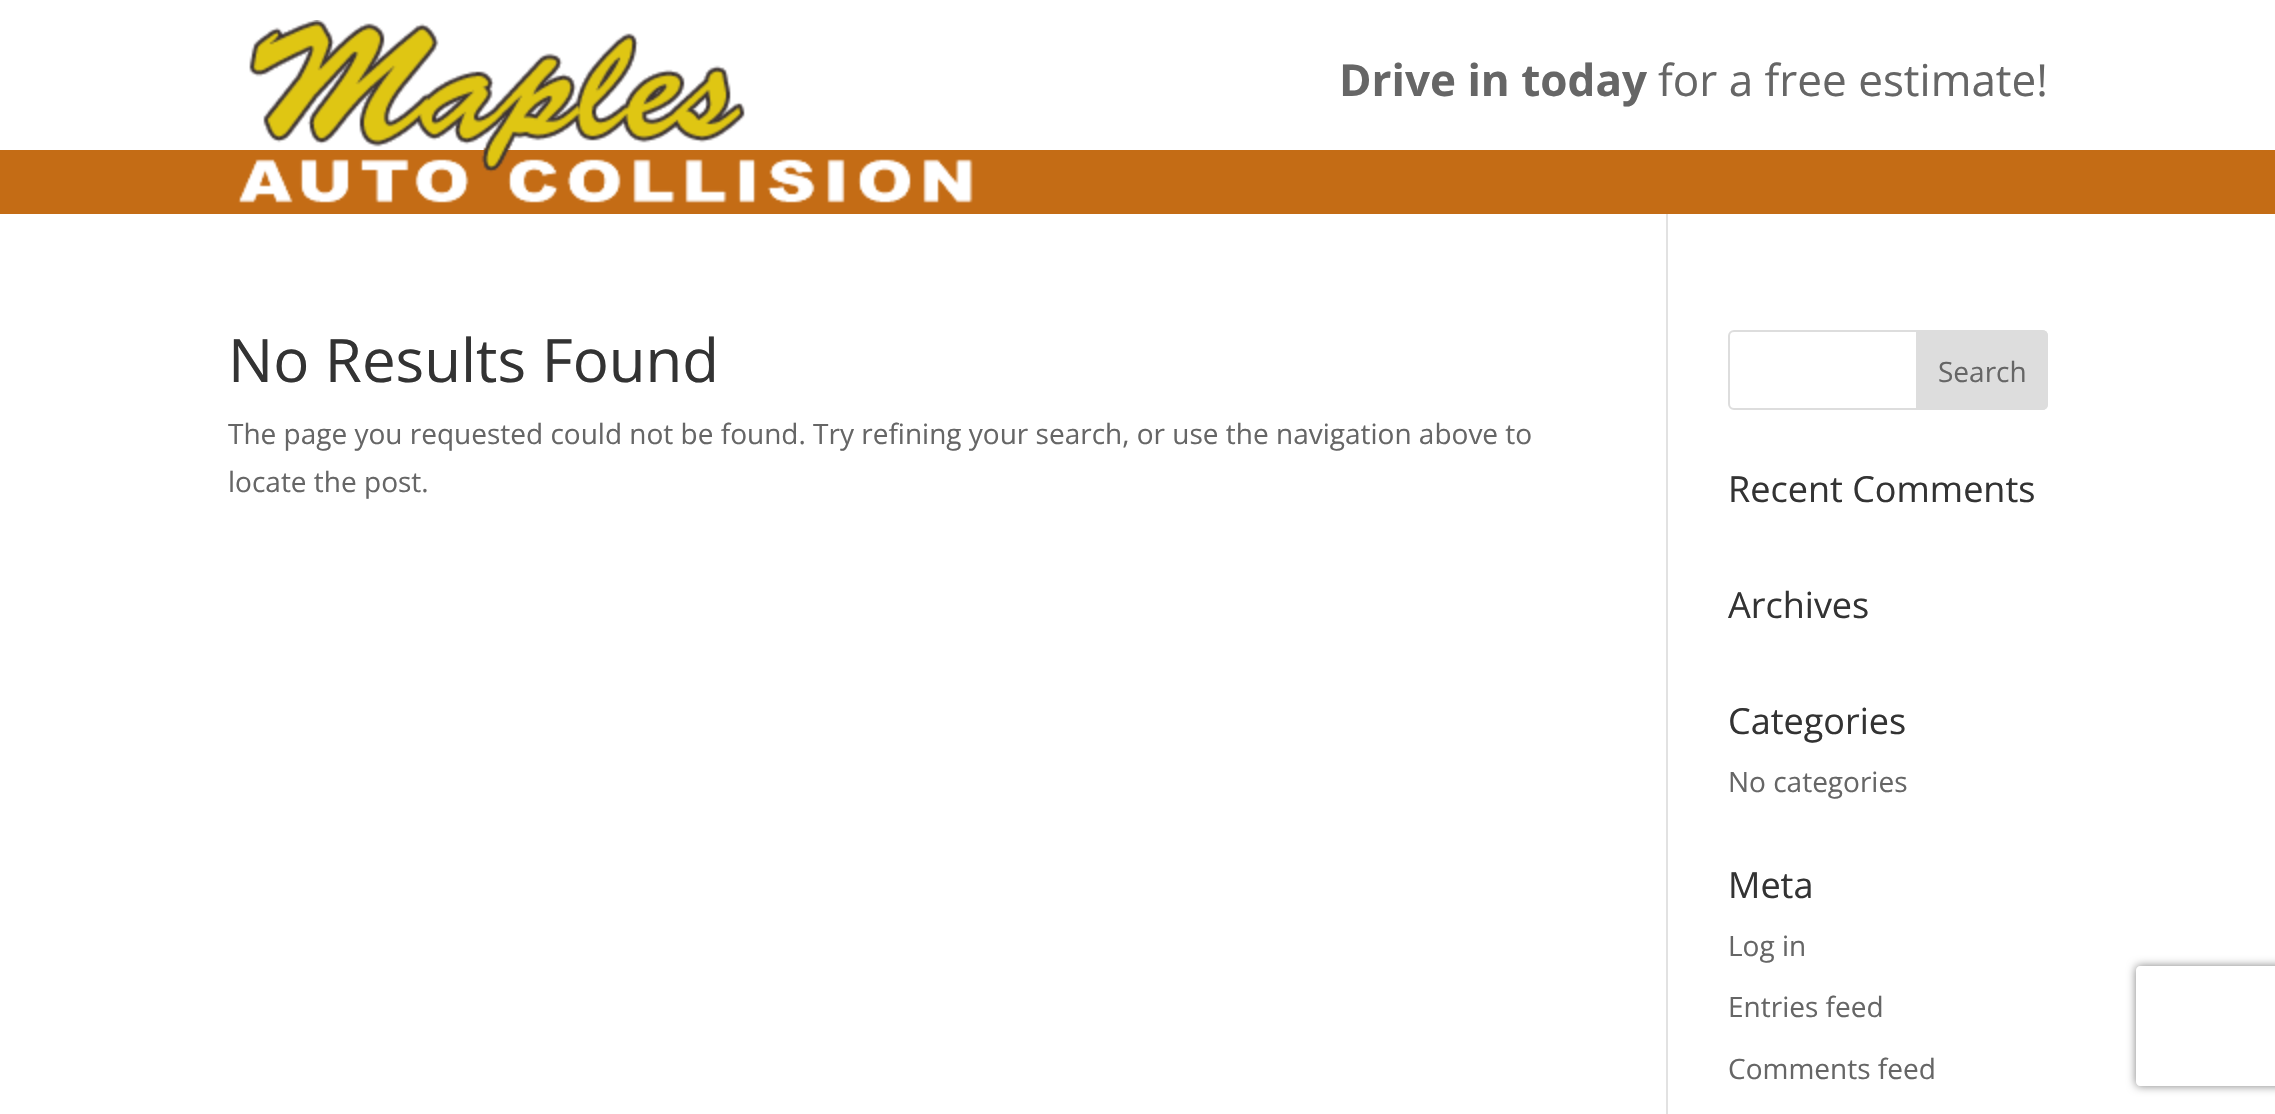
void draw(SkCanvas* canvas) {
	SkPaint paint;
	paint.setAntiAlias(true);
	auto svgPath = [&](const char* data, bool evenOdd = false) {
		SkPath result = *SkParsePath::FromSVGString(data);
		if (evenOdd) result.setFillType(SkPathFillType::kEvenOdd);
		return result;
	};
	canvas->clear(0xffffffff);
	paint.setColor(0xffc46c15);
	canvas->drawRect(SkRect::MakeXYWH(0, 150, 2275, 64), paint);
	canvas->drawImageRect(SkImages::DeferredFromEncodedData(SkData::MakeFromFileName("img1.png")), SkRect::MakeXYWH(238, 20, 735, 183), SkSamplingOptions());
	SkFont f1(fontMgr->matchFamilyStyle("Open Sans", SkFontStyle::Bold()), 44);
	f1.setSubpixel(true);
	paint.setColor(0xff666666);
	canvas->drawString("Drive in today", 1339, 96, f1, paint);
	SkFont f2(fontMgr->matchFamilyStyle("Open Sans", SkFontStyle::Normal()), 44);
	f2.setSubpixel(true);
	canvas->drawString("for a free estimate!", 1658, 96, f2, paint);
	paint.setColor(0xffe2e2e2);
	canvas->drawRect(SkRect::MakeXYWH(1666, 214, 2, 900), paint);
	SkFont f3(fontMgr->matchFamilyStyle("Open Sans", SkFontStyle::Normal()), 60);
	f3.setSubpixel(true);
	paint.setColor(0xff333333);
	canvas->drawString("No Results Found", 228, 382, f3, paint);
	SkFont f4(fontMgr->matchFamilyStyle("Open Sans", SkFontStyle::Normal()), 28);
	f4.setSubpixel(true);
	paint.setColor(0xff666666);
	canvas->drawString("The page you requested could not be found. Try refining your search, or use the navigation above to", 228, 444, f4, paint);
	canvas->drawString("locate the post.", 228, 492, f4, paint);
	paint.setStroke(true);
	paint.setStrokeWidth(2);
	paint.setColor(0xffdddddd);
	canvas->drawRoundRect(SkRect::MakeXYWH(1729, 331, 318, 78), 5, 5, paint);
	paint.setStroke(false);
	canvas->drawPath(svgPath("M1917 331H2042C2045 331 2047 333 2047 336V404C2047 407 2045 409 2042 409H1917Z"), paint);
	paint.setStroke(true);
	canvas->drawPath(svgPath("M1917 331H2042C2045 331 2047 333 2047 336V404C2047 407 2045 409 2042 409H1917Z"), paint);
	paint.setStroke(false);
	paint.setColor(0xff666666);
	canvas->drawString("Search", 1938, 382, f4, paint);
	SkFont f5(fontMgr->matchFamilyStyle("Open Sans", SkFontStyle::Normal()), 36);
	f5.setSubpixel(true);
	paint.setColor(0xff333333);
	canvas->drawString("Recent Comments", 1728, 502, f5, paint);
	canvas->drawString("Archives", 1728, 618, f5, paint);
	canvas->drawString("Categories", 1728, 734, f5, paint);
	paint.setColor(0xff666666);
	canvas->drawString("No categories", 1728, 792, f4, paint);
	paint.setColor(0xff333333);
	canvas->drawString("Meta", 1728, 898, f5, paint);
	paint.setColor(0xff666666);
	canvas->drawString("Log in", 1728, 956, f4, paint);
	canvas->drawString("Entries feed", 1728, 1017, f4, paint);
	canvas->drawString("Comments feed", 1728, 1079, f4, paint);
	canvas->save();
	canvas->clipPath(svgPath("M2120 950H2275V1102H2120ZM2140 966H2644C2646 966 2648 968 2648 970V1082C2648 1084 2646 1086 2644 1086H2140C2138 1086 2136 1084 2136 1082V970C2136 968 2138 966 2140 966Z", true), true);
	paint.setColor(0xff808080);
	paint.setMaskFilter(SkMaskFilter::MakeBlur(kNormal_SkBlurStyle, 5));
	canvas->drawRoundRect(SkRect::MakeXYWH(2136, 966, 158, 120), 4, 4, paint);
	paint.setMaskFilter(nullptr);
	canvas->restore();
}
